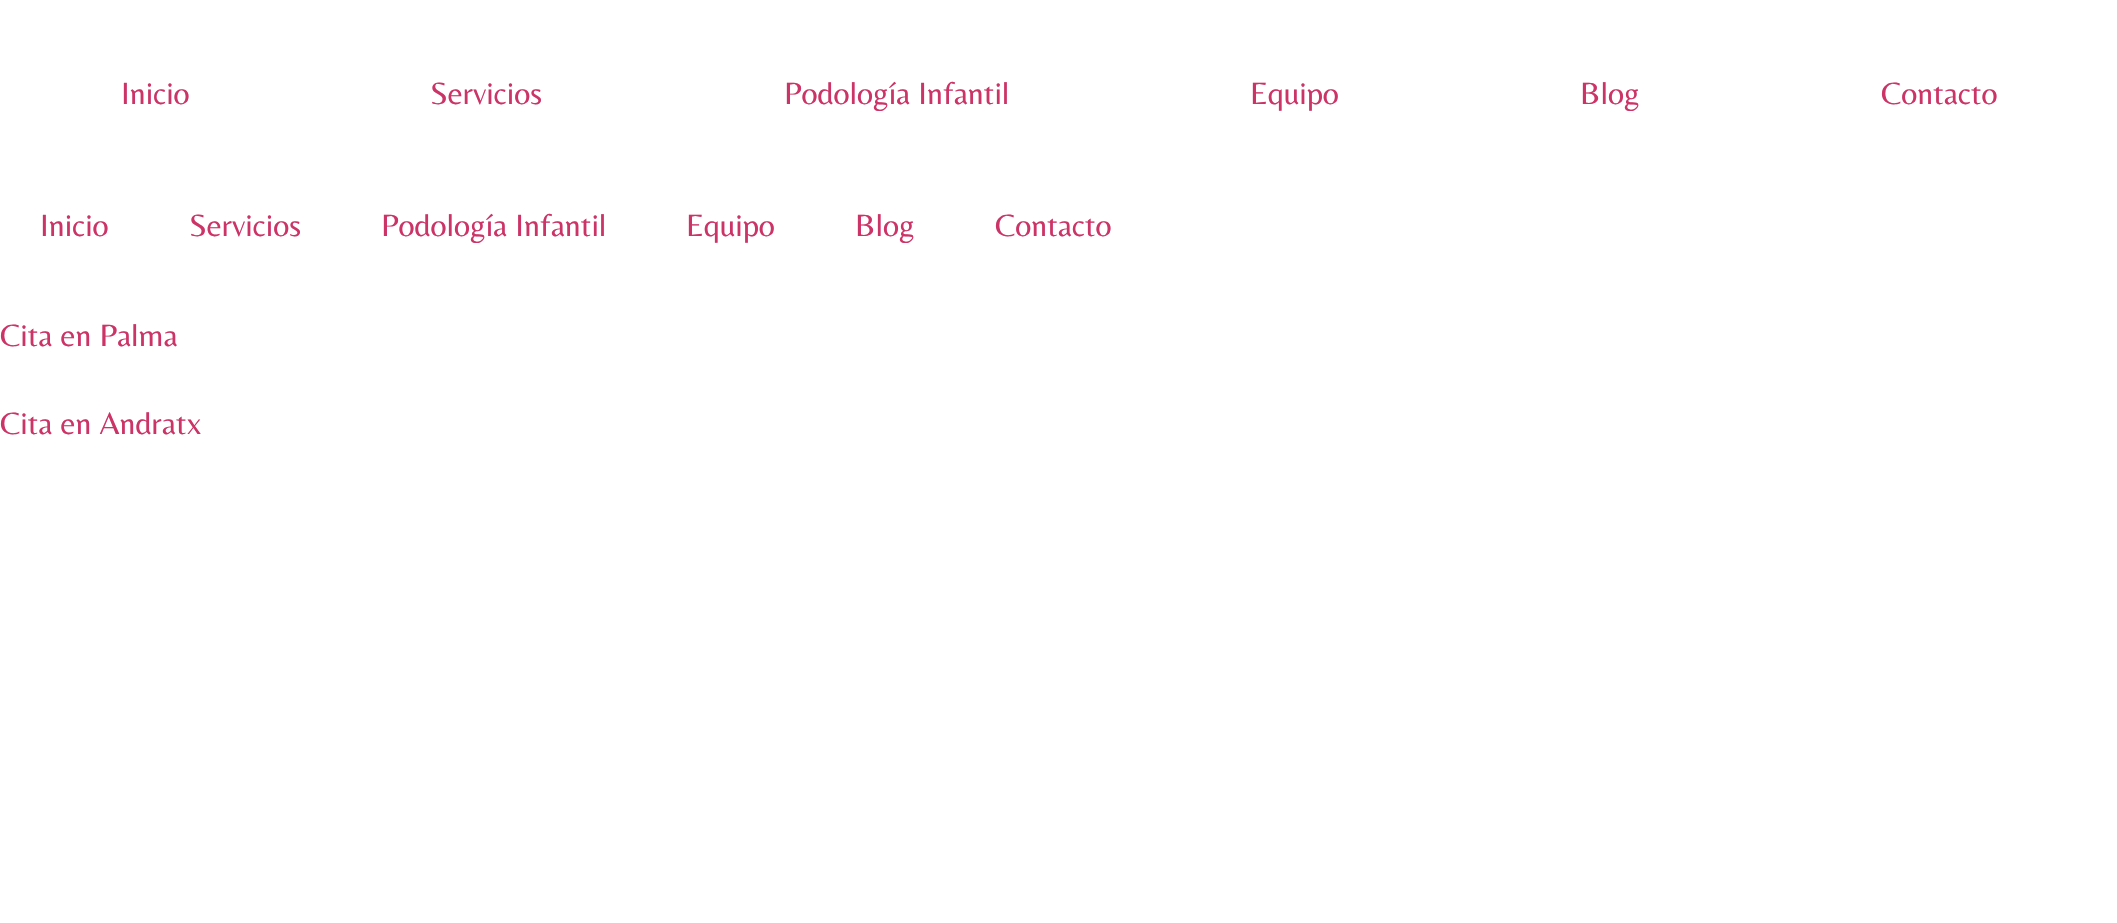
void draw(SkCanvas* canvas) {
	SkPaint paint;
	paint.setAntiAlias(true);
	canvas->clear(0xffffffff);
	SkFont f1(fontMgr->matchFamilyStyle("Belleza", SkFontStyle::Normal()), 32);
	f1.setSubpixel(true);
	paint.setColor(0xffcc3366);
	canvas->drawString("Inicio", 121, 104, f1, paint);
	canvas->drawString("Servicios", 430, 104, f1, paint);
	canvas->drawString("Podología Infantil", 784, 104, f1, paint);
	canvas->drawString("Equipo", 1250, 104, f1, paint);
	canvas->drawString("Blog", 1580, 104, f1, paint);
	canvas->drawString("Contacto", 1881, 104, f1, paint);
	canvas->drawString("Inicio", 40, 236, f1, paint);
	canvas->drawString("Servicios", 189, 236, f1, paint);
	canvas->drawString("Podología Infantil", 381, 236, f1, paint);
	canvas->drawString("Equipo", 686, 236, f1, paint);
	canvas->drawString("Blog", 855, 236, f1, paint);
	canvas->drawString("Contacto", 995, 236, f1, paint);
	canvas->drawString("Cita en Palma", 0, 346, f1, paint);
	canvas->drawString("Cita en Andratx", 0, 434, f1, paint);
}
